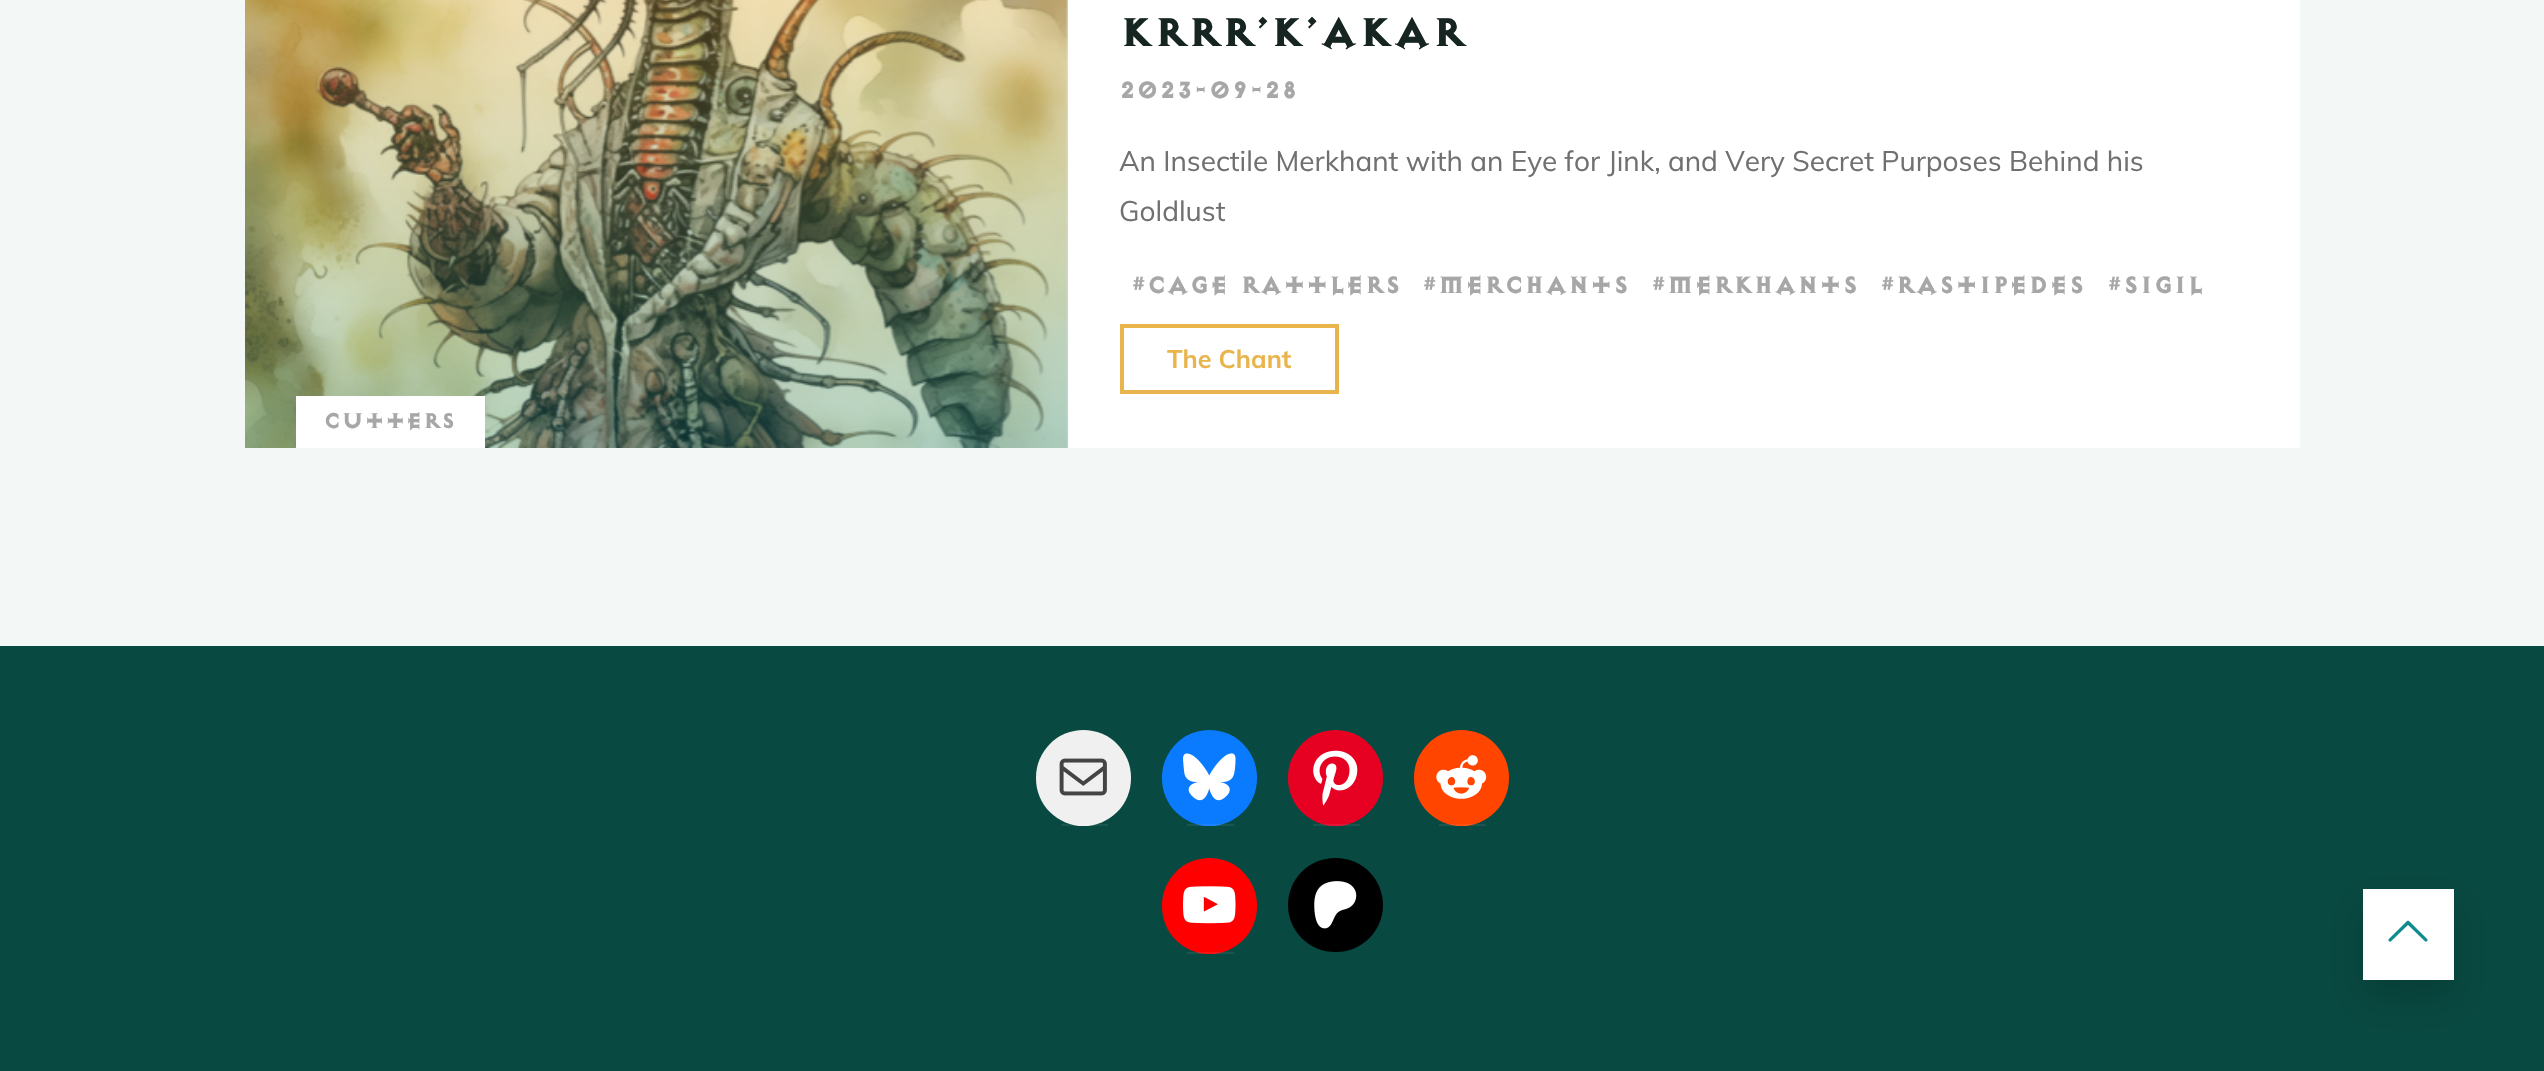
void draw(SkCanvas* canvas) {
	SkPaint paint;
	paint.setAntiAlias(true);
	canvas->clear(0xfff3f7f6);
	paint.setColor(0xffffffff);
	canvas->drawRect(SkRect::MakeXYWH(1066, 0, 1234, 448), paint);
	SkFont f1(fontMgr->matchFamilyStyle("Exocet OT", SkFontStyle(900, SkFontStyle::kNormal_Width, SkFontStyle::kUpright_Slant)), 47.5);
	f1.setSubpixel(true);
	paint.setColor(0xff162521);
	canvas->drawString("Krrr’K’Akar", 1119, 46, f1, paint);
	SkFont f2(fontMgr->matchFamilyStyle("Exocet OT", SkFontStyle(900, SkFontStyle::kNormal_Width, SkFontStyle::kUpright_Slant)), 28);
	f2.setSubpixel(true);
	paint.setColor(0xffa7a7a7);
	canvas->drawString("2023-09-28", 1119, 98, f2, paint);
	SkFont f3(fontMgr->matchFamilyStyle("Muli", SkFontStyle::Normal()), 28);
	f3.setSubpixel(true);
	paint.setColor(0xff707070);
	canvas->drawString("An Insectile Merkhant with an Eye for Jink, and Very Secret Purposes Behind his", 1119, 171, f3, paint);
	canvas->drawString("Goldlust", 1119, 221, f3, paint);
	paint.setColor(0xffa7a7a7);
	canvas->drawString("#Cage Rattlers", 1131, 293, f2, paint);
	canvas->drawString("#Merchants", 1422, 293, f2, paint);
	canvas->drawString("#Merkhants", 1651, 293, f2, paint);
	canvas->drawString("#Rastipedes", 1880, 293, f2, paint);
	canvas->drawString("#Sigil", 2107, 293, f2, paint);
	paint.setStroke(true);
	paint.setStrokeWidth(4);
	paint.setColor(0xffe9b44c);
	canvas->drawRect(SkRect::MakeXYWH(1122, 326, 215, 66), paint);
	SkFont f4(fontMgr->matchFamilyStyle("Muli", SkFontStyle::Bold()), 25.25);
	f4.setSubpixel(true);
	paint.setStroke(false);
	canvas->drawString("The Chant", 1167, 368, f4, paint);
	canvas->drawImageRect(SkImages::DeferredFromEncodedData(SkData::MakeFromFileName("img1.png")), SkRect::MakeXYWH(245, 0, 823, 448), SkSamplingOptions());
	{
		const SkColor colors[] = {0x4de9b44c, 0x4d0f8b8d};
		const float stops[] = {0, 1};
		const SkPoint ends[] = {{656, -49}, {656, 448}};
		paint.setShader(SkGradientShader::MakeLinear(ends, colors, stops, 2, SkTileMode::kClamp));
		paint.setAlpha(255);
	}
	canvas->drawRect(SkRect::MakeXYWH(245, 0, 823, 448), paint);
	paint.setShader(nullptr);
	paint.setColor(0xffffffff);
	canvas->drawRect(SkRect::MakeXYWH(296, 396, 189, 52), paint);
	SkFont f5(fontMgr->matchFamilyStyle("Exocet OT", SkFontStyle(900, SkFontStyle::kNormal_Width, SkFontStyle::kUpright_Slant)), 25.25);
	f5.setSubpixel(true);
	paint.setColor(0xffa7a7a7);
	canvas->drawString("Cutters", 323, 428, f5, paint);
	paint.setColor(0xff084941);
	canvas->drawRect(SkRect::MakeXYWH(0, 646, 2544, 425), paint);
	paint.setColor(0xfff0f0f0);
	canvas->drawRoundRect(SkRect::MakeXYWH(1036, 730, 95, 96), 47.5, 47.5, paint);
	paint.setColor(0x12ffffff);
	canvas->drawRect(SkRect::MakeXYWH(1061, 824, 47, 2), paint);
	canvas->drawImageRect(SkImages::DeferredFromEncodedData(SkData::MakeFromFileName("img2.png")), SkRect::MakeXYWH(1059, 758, 48, 38), SkSamplingOptions());
	paint.setColor(0xff0a7aff);
	canvas->drawRoundRect(SkRect::MakeXYWH(1162, 730, 95, 96), 47.5, 47.5, paint);
	paint.setColor(0x12ffffff);
	canvas->drawRect(SkRect::MakeXYWH(1187, 824, 47, 2), paint);
	canvas->drawImageRect(SkImages::DeferredFromEncodedData(SkData::MakeFromFileName("img3.png")), SkRect::MakeXYWH(1183, 753, 53, 48), SkSamplingOptions());
	paint.setColor(0xffe60122);
	canvas->drawRoundRect(SkRect::MakeXYWH(1288, 730, 95, 96), 47.5, 47.5, paint);
	paint.setColor(0x12ffffff);
	canvas->drawRect(SkRect::MakeXYWH(1313, 824, 47, 2), paint);
	canvas->drawImageRect(SkImages::DeferredFromEncodedData(SkData::MakeFromFileName("img4.png")), SkRect::MakeXYWH(1313, 750, 45, 56), SkSamplingOptions());
	paint.setColor(0xffff4500);
	canvas->drawRoundRect(SkRect::MakeXYWH(1414, 730, 95, 96), 47.5, 47.5, paint);
	paint.setColor(0x12ffffff);
	canvas->drawRect(SkRect::MakeXYWH(1439, 824, 47, 2), paint);
	canvas->drawImageRect(SkImages::DeferredFromEncodedData(SkData::MakeFromFileName("img5.png")), SkRect::MakeXYWH(1436, 755, 51, 44), SkSamplingOptions());
	paint.setColor(0xffff0000);
	canvas->drawRoundRect(SkRect::MakeXYWH(1162, 858, 95, 96), 47.5, 47.5, paint);
	paint.setColor(0x12ffffff);
	canvas->drawRect(SkRect::MakeXYWH(1187, 952, 47, 2), paint);
	canvas->drawImageRect(SkImages::DeferredFromEncodedData(SkData::MakeFromFileName("img6.png")), SkRect::MakeXYWH(1183, 886, 53, 38), SkSamplingOptions());
	paint.setColor(0xff000000);
	canvas->drawRoundRect(SkRect::MakeXYWH(1288, 858, 95, 94), 47, 47, paint);
	canvas->drawImageRect(SkImages::DeferredFromEncodedData(SkData::MakeFromFileName("img7.png")), SkRect::MakeXYWH(1314, 881, 43, 48), SkSamplingOptions());
	paint.setColor(0x26000000);
	paint.setMaskFilter(SkMaskFilter::MakeBlur(kNormal_SkBlurStyle, 17.5));
	canvas->drawRect(SkRect::MakeXYWH(2363, 907, 91, 91), paint);
	paint.setMaskFilter(nullptr);
	paint.setColor(0xffffffff);
	canvas->drawRect(SkRect::MakeXYWH(2363, 889, 91, 91), paint);
	canvas->drawImageRect(SkImages::DeferredFromEncodedData(SkData::MakeFromFileName("img8.png")), SkRect::MakeXYWH(2388, 920, 40, 22), SkSamplingOptions());
}
